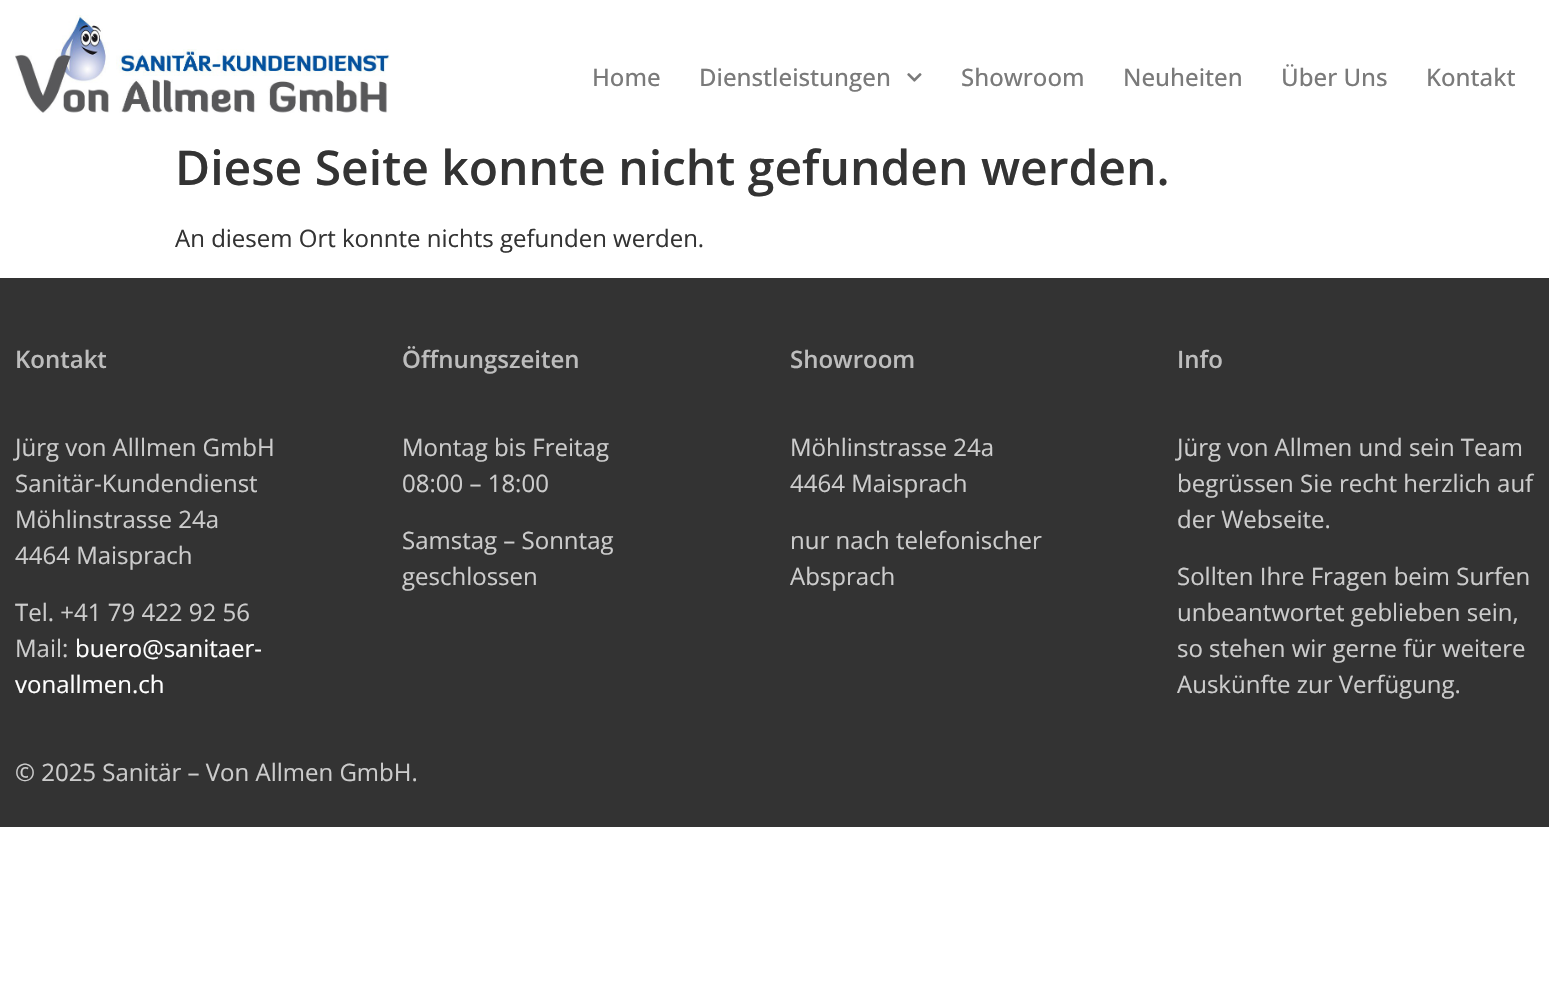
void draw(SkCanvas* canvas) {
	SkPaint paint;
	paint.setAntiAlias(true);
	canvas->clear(0xffffffff);
	canvas->drawImageRect(SkImages::DeferredFromEncodedData(SkData::MakeFromFileName("img1.png")), SkRect::MakeXYWH(15, 15, 375, 98), SkSamplingOptions());
	SkFont f1(fontMgr->matchFamilyStyle("Open Sans", SkFontStyle(500, SkFontStyle::kNormal_Width, SkFontStyle::kUpright_Slant)), 24);
	f1.setSubpixel(true);
	paint.setColor(0xff7a7a7a);
	canvas->drawString("Home", 592, 86, f1, paint);
	canvas->drawString("Dienstleistungen", 699, 86, f1, paint);
	canvas->drawImageRect(SkImages::DeferredFromEncodedData(SkData::MakeFromFileName("img2.png")), SkRect::MakeXYWH(907, 73, 15, 9), SkSamplingOptions());
	canvas->drawString("Showroom", 961, 86, f1, paint);
	canvas->drawString("Neuheiten", 1123, 86, f1, paint);
	canvas->drawString("Über Uns", 1281, 86, f1, paint);
	canvas->drawString("Kontakt", 1426, 86, f1, paint);
	SkFont f2(fontMgr->matchFamilyStyle("Open Sans", SkFontStyle(600, SkFontStyle::kNormal_Width, SkFontStyle::kUpright_Slant)), 48);
	f2.setSubpixel(true);
	paint.setColor(0xff333333);
	canvas->drawString("Diese Seite konnte nicht gefunden werden.", 175, 185, f2, paint);
	SkFont f3(fontMgr->matchFamilyStyle("Open Sans", SkFontStyle::Normal()), 24);
	f3.setSubpixel(true);
	canvas->drawString("An diesem Ort konnte nichts gefunden werden.", 175, 247, f3, paint);
	canvas->drawRect(SkRect::MakeXYWH(0, 278, 1549, 549), paint);
	SkFont f4(fontMgr->matchFamilyStyle("Open Sans", SkFontStyle(600, SkFontStyle::kNormal_Width, SkFontStyle::kUpright_Slant)), 24);
	f4.setSubpixel(true);
	paint.setColor(0xffbdbdbd);
	canvas->drawString("Kontakt", 15, 368, f4, paint);
	paint.setColor(0xffcccccc);
	canvas->drawString("Jürg von Alllmen GmbH", 15, 456, f3, paint);
	canvas->drawString("Sanitär-Kundendienst", 15, 492, f3, paint);
	canvas->drawString("Möhlinstrasse 24a", 15, 528, f3, paint);
	canvas->drawString("4464 Maisprach", 15, 564, f3, paint);
	canvas->drawString("Tel. +41 79 422 92 56", 15, 621, f3, paint);
	canvas->drawString("Mail:", 15, 657, f3, paint);
	paint.setColor(0xffffffff);
	canvas->drawString("buero@sanitaer-", 75, 657, f3, paint);
	canvas->drawString("vonallmen.ch", 15, 693, f3, paint);
	paint.setColor(0xffbdbdbd);
	canvas->drawString("Öffnungszeiten", 402, 368, f4, paint);
	paint.setColor(0xffcccccc);
	canvas->drawString("Montag bis Freitag", 402, 456, f3, paint);
	canvas->drawString("08:00 – 18:00", 402, 492, f3, paint);
	canvas->drawString("Samstag – Sonntag", 402, 549, f3, paint);
	canvas->drawString("geschlossen", 402, 585, f3, paint);
	paint.setColor(0xffbdbdbd);
	canvas->drawString("Showroom", 790, 368, f4, paint);
	paint.setColor(0xffcccccc);
	canvas->drawString("Möhlinstrasse 24a", 790, 456, f3, paint);
	canvas->drawString("4464 Maisprach", 790, 492, f3, paint);
	canvas->drawString("nur nach telefonischer", 790, 549, f3, paint);
	canvas->drawString("Absprach", 790, 585, f3, paint);
	paint.setColor(0xffbdbdbd);
	canvas->drawString("Info", 1177, 368, f4, paint);
	paint.setColor(0xffcccccc);
	canvas->drawString("Jürg von Allmen und sein Team", 1177, 456, f3, paint);
	canvas->drawString("begrüssen Sie recht herzlich auf", 1177, 492, f3, paint);
	canvas->drawString("der Webseite.", 1177, 528, f3, paint);
	canvas->drawString("Sollten Ihre Fragen beim Surfen", 1177, 585, f3, paint);
	canvas->drawString("unbeantwortet geblieben sein,", 1177, 621, f3, paint);
	canvas->drawString("so stehen wir gerne für weitere", 1177, 657, f3, paint);
	canvas->drawString("Auskünfte zur Verfügung.", 1177, 693, f3, paint);
	canvas->drawString("© 2025 Sanitär – Von Allmen GmbH.", 15, 781, f3, paint);
}
